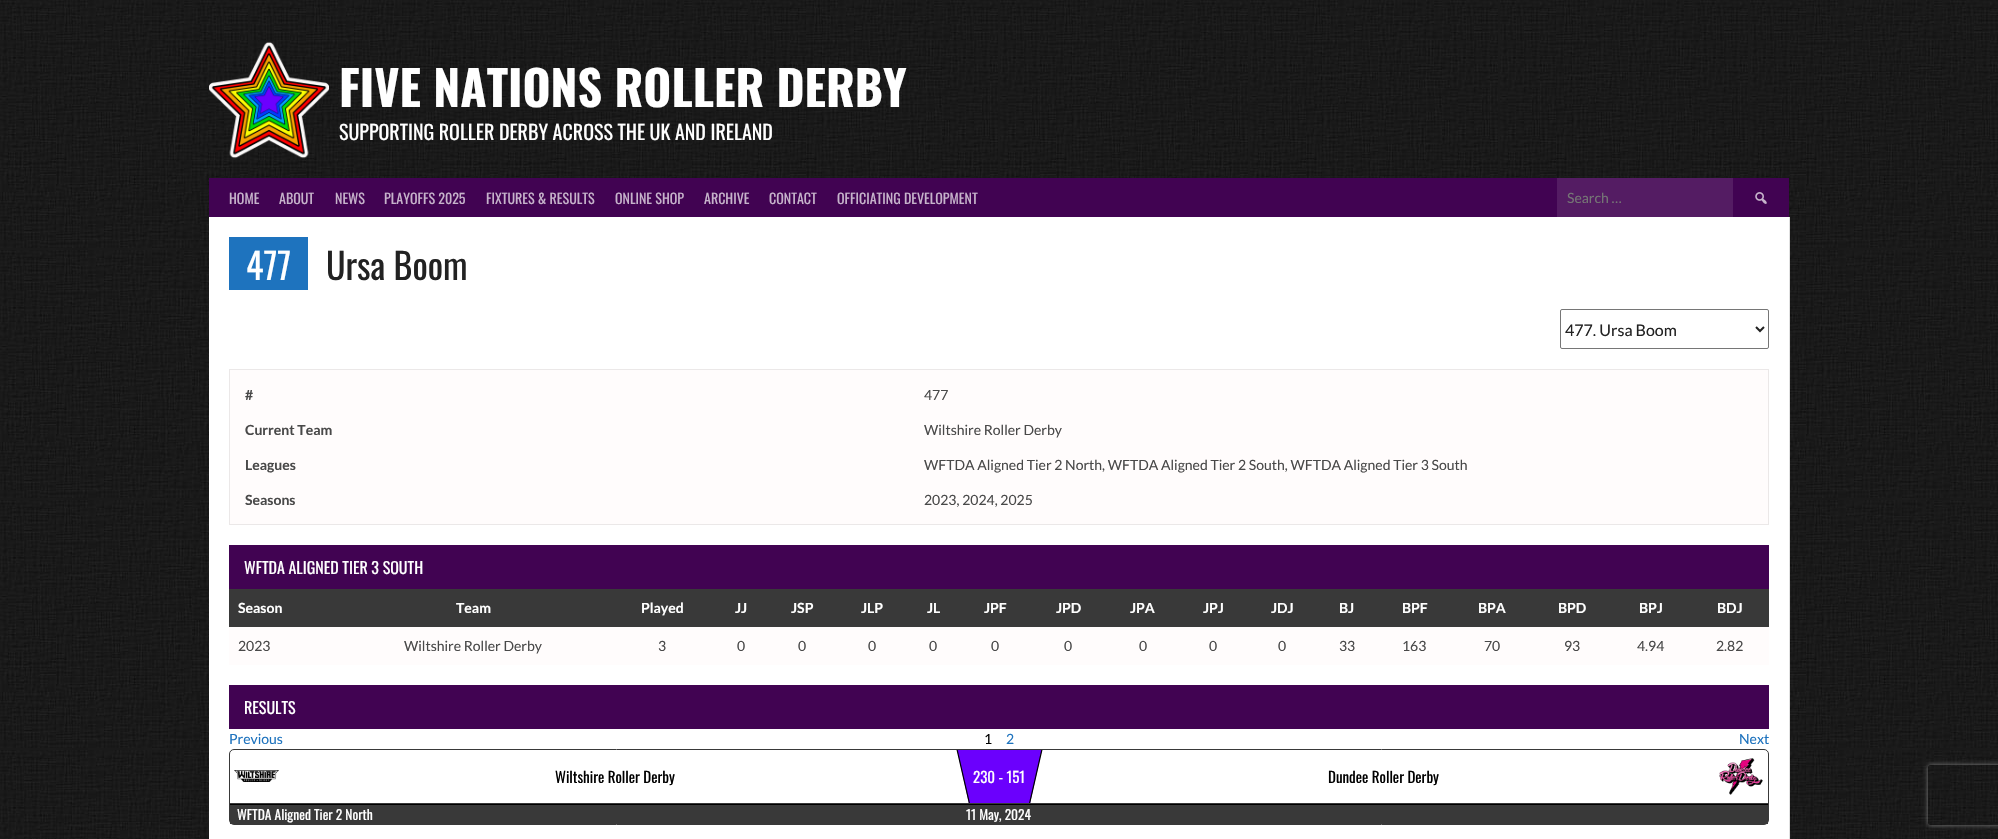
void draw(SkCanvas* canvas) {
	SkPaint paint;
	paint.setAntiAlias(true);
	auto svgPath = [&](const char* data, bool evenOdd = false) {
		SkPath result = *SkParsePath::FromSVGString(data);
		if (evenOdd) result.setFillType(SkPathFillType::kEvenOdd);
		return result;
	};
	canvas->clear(0xffffffff);
	canvas->drawImageRect(SkImages::DeferredFromEncodedData(SkData::MakeFromFileName("img1.png")), SkRect::MakeXYWH(0, 0, 1998, 839), SkSamplingOptions());
	canvas->drawImageRect(SkImages::DeferredFromEncodedData(SkData::MakeFromFileName("img2.png")), SkRect::MakeXYWH(209, 42, 120, 117), SkSamplingOptions());
	SkFont f1(fontMgr->matchFamilyStyle("Oswald", SkFontStyle::Bold()), 48);
	f1.setSubpixel(true);
	paint.setColor(0xffffffff);
	canvas->drawString("FIVE NATIONS ROLLER DERBY", 339, 107, f1, paint);
	SkFont f2(fontMgr->matchFamilyStyle("Oswald", SkFontStyle::Normal()), 20);
	f2.setSubpixel(true);
	canvas->drawString("SUPPORTING ROLLER DERBY ACROSS THE UK AND IRELAND", 339, 140, f2, paint);
	paint.setColor(0xff410352);
	canvas->drawRect(SkRect::MakeXYWH(209, 178, 1580, 39), paint);
	SkFont f3(fontMgr->matchFamilyStyle("Oswald", SkFontStyle::Normal()), 14);
	f3.setSubpixel(true);
	paint.setColor(0xffc6b3cb);
	canvas->drawString("HOME", 229, 204, f3, paint);
	canvas->drawString("ABOUT", 279, 204, f3, paint);
	canvas->drawString("NEWS", 335, 204, f3, paint);
	canvas->drawString("PLAYOFFS 2025", 384, 204, f3, paint);
	canvas->drawString("FIXTURES & RESULTS", 486, 204, f3, paint);
	canvas->drawString("ONLINE SHOP", 615, 204, f3, paint);
	canvas->drawString("ARCHIVE", 704, 204, f3, paint);
	canvas->drawString("CONTACT", 769, 204, f3, paint);
	canvas->drawString("OFFICIATING DEVELOPMENT", 837, 204, f3, paint);
	paint.setColor(0xff541c63);
	canvas->drawRect(SkRect::MakeXYWH(1557, 178, 176, 39), paint);
	SkFont f4(fontMgr->matchFamilyStyle("Lato", SkFontStyle::Normal()), 14);
	f4.setSubpixel(true);
	paint.setColor(0xff757575);
	canvas->drawString("Search …", 1567, 203, f4, paint);
	canvas->drawImageRect(SkImages::DeferredFromEncodedData(SkData::MakeFromFileName("img3.png")), SkRect::MakeXYWH(1755, 192, 12, 12), SkSamplingOptions());
	paint.setColor(0xffffffff);
	canvas->drawRect(SkRect::MakeXYWH(209, 217, 1580, 622), paint);
	paint.setColor(0xffe0e0e0);
	canvas->drawRect(SkRect::MakeXYWH(1789, 217, 1, 622), paint);
	paint.setColor(0xff1e73be);
	canvas->drawRect(SkRect::MakeXYWH(229, 237, 79, 53), paint);
	SkFont f5(fontMgr->matchFamilyStyle("Oswald", SkFontStyle::Normal()), 36);
	f5.setSubpixel(true);
	paint.setColor(0xffffffff);
	canvas->drawString("477", 246, 280, f5, paint);
	paint.setColor(0xff222222);
	canvas->drawString("Ursa Boom", 326, 280, f5, paint);
	paint.setStroke(true);
	paint.setStrokeWidth(1);
	paint.setColor(0xff767676);
	canvas->drawRoundRect(SkRect::MakeXYWH(1560.5, 309.5, 208, 39), 1.5, 1.5, paint);
	paint.setStrokeWidth(2);
	paint.setColor(0xff222222);
	canvas->drawPath(svgPath("M1756 327L1760 331L1764 327"), paint);
	SkFont f6(fontMgr->matchFamilyStyle("Lato", SkFontStyle::Normal()), 16);
	f6.setSubpixel(true);
	paint.setStroke(false);
	canvas->drawString("477. Ursa Boom", 1565, 336, f6, paint);
	paint.setColor(0xfffffcfc);
	canvas->drawRect(SkRect::MakeXYWH(229.5, 369.5, 1539, 155), paint);
	paint.setStroke(true);
	paint.setStrokeWidth(1);
	paint.setColor(0xffebe8e8);
	canvas->drawRect(SkRect::MakeXYWH(229.5, 369.5, 1539, 155), paint);
	SkFont f7(fontMgr->matchFamilyStyle("Lato", SkFontStyle::Bold()), 14);
	f7.setSubpixel(true);
	paint.setStroke(false);
	paint.setColor(0xff494949);
	canvas->drawString("#", 245, 400, f7, paint);
	canvas->drawString("477", 924, 400, f4, paint);
	canvas->drawString("Current Team", 245, 435, f7, paint);
	canvas->drawString("Wiltshire Roller Derby", 924, 435, f4, paint);
	canvas->drawString("Leagues", 245, 470, f7, paint);
	canvas->drawString("WFTDA Aligned Tier 2 North, WFTDA Aligned Tier 2 South, WFTDA Aligned Tier 3 South", 924, 470, f4, paint);
	canvas->drawString("Seasons", 245, 505, f7, paint);
	canvas->drawString("2023, 2024, 2025", 924, 505, f4, paint);
	paint.setColor(0xff410352);
	canvas->drawRect(SkRect::MakeXYWH(229, 545, 1540, 44), paint);
	SkFont f8(fontMgr->matchFamilyStyle("Oswald", SkFontStyle::Normal()), 16);
	f8.setSubpixel(true);
	paint.setColor(0xffffffff);
	canvas->drawString("WFTDA ALIGNED TIER 3 SOUTH", 244, 574, f8, paint);
	paint.setColor(0xfffffcfc);
	canvas->drawRect(SkRect::MakeXYWH(229, 627, 1540, 38), paint);
	paint.setColor(0xff393939);
	canvas->drawRect(SkRect::MakeXYWH(229, 589, 1540, 38), paint);
	paint.setColor(0xffffffff);
	canvas->drawString("Season", 238, 613, f7, paint);
	canvas->drawString("Team", 456, 613, f7, paint);
	canvas->drawString("Played", 641, 613, f7, paint);
	canvas->drawString("JJ", 735, 613, f7, paint);
	canvas->drawString("JSP", 791, 613, f7, paint);
	canvas->drawString("JLP", 861, 613, f7, paint);
	canvas->drawString("JL", 927, 613, f7, paint);
	canvas->drawString("JPF", 984, 613, f7, paint);
	canvas->drawString("JPD", 1056, 613, f7, paint);
	canvas->drawString("JPA", 1130, 613, f7, paint);
	canvas->drawString("JPJ", 1203, 613, f7, paint);
	canvas->drawString("JDJ", 1271, 613, f7, paint);
	canvas->drawString("BJ", 1339, 613, f7, paint);
	canvas->drawString("BPF", 1402, 613, f7, paint);
	canvas->drawString("BPA", 1478, 613, f7, paint);
	canvas->drawString("BPD", 1558, 613, f7, paint);
	canvas->drawString("BPJ", 1639, 613, f7, paint);
	canvas->drawString("BDJ", 1717, 613, f7, paint);
	paint.setColor(0xff494949);
	canvas->drawString("2023", 238, 651, f4, paint);
	canvas->drawString("Wiltshire Roller Derby", 404, 651, f4, paint);
	canvas->drawString("3", 658, 651, f4, paint);
	canvas->drawString("0", 737, 651, f4, paint);
	canvas->drawString("0", 798, 651, f4, paint);
	canvas->drawString("0", 868, 651, f4, paint);
	canvas->drawString("0", 929, 651, f4, paint);
	canvas->drawString("0", 991, 651, f4, paint);
	canvas->drawString("0", 1064, 651, f4, paint);
	canvas->drawString("0", 1139, 651, f4, paint);
	canvas->drawString("0", 1209, 651, f4, paint);
	canvas->drawString("0", 1278, 651, f4, paint);
	canvas->drawString("33", 1339, 651, f4, paint);
	canvas->drawString("163", 1402, 651, f4, paint);
	canvas->drawString("70", 1484, 651, f4, paint);
	canvas->drawString("93", 1564, 651, f4, paint);
	canvas->drawString("4.94", 1637, 651, f4, paint);
	canvas->drawString("2.82", 1716, 651, f4, paint);
	paint.setColor(0xff410352);
	canvas->drawRect(SkRect::MakeXYWH(229, 685, 1540, 44), paint);
	paint.setColor(0xffffffff);
	canvas->drawString("RESULTS", 244, 714, f8, paint);
	paint.setColor(0xff1e73be);
	canvas->drawString("Previous", 229, 744, f4, paint);
	paint.setColor(0xff000000);
	canvas->drawString("1", 984, 744, f4, paint);
	paint.setColor(0xff1e73be);
	canvas->drawString("2", 1006, 744, f4, paint);
	canvas->drawString("Next", 1739, 744, f4, paint);
	paint.setStroke(true);
	paint.setColor(0xff393939);
	canvas->drawRoundRect(SkRect::MakeXYWH(229.5, 749.5, 1539, 75), 4.5, 4.5, paint);
	paint.setStroke(false);
	canvas->drawRect(SkRect::MakeXYWH(230, 803, 1538, 1), paint);
	canvas->drawImageRect(SkImages::DeferredFromEncodedData(SkData::MakeFromFileName("img4.png")), SkRect::MakeXYWH(234, 770, 45, 12), SkSamplingOptions());
	SkFont f9(fontMgr->matchFamilyStyle("Oswald", SkFontStyle::Normal()), 15);
	f9.setSubpixel(true);
	paint.setColor(0xff000000);
	canvas->drawString("Wiltshire Roller Derby", 555, 783, f9, paint);
	canvas->save();
	canvas->clipRect(SkRect::MakeXYWH(947, 750, 105, 53));
	paint.setColor(0xff6b00fd);
	canvas->drawPath(svgPath("M956 745H1043L1029 808H970Z"), paint);
	paint.setStroke(true);
	paint.setStrokeWidth(1.2);
	paint.setColor(0xff000000);
	canvas->drawPath(svgPath("M956 745H1043L1028.5 808H970.5Z"), paint);
	canvas->restore();
	paint.setStroke(false);
	paint.setColor(0xffffffff);
	canvas->drawString("230 - 151", 973, 783, f9, paint);
	paint.setColor(0xff000000);
	canvas->drawString("Dundee Roller Derby", 1328, 783, f9, paint);
	canvas->drawImageRect(SkImages::DeferredFromEncodedData(SkData::MakeFromFileName("img5.png")), SkRect::MakeXYWH(1719, 758, 44, 37), SkSamplingOptions());
	paint.setColor(0xff393939);
	canvas->drawRect(SkRect::MakeXYWH(230, 805, 1538, 19), paint);
	paint.setColor(0xff000000);
	canvas->drawRect(SkRect::MakeXYWH(230, 804, 1538, 1), paint);
	SkFont f10(fontMgr->matchFamilyStyle("Oswald", SkFontStyle::Normal()), 13.5);
	f10.setSubpixel(true);
	paint.setColor(0xffffffff);
	canvas->drawString("WFTDA Aligned Tier 2 North", 237, 820, f10, paint);
	canvas->drawString("11 May, 2024", 966, 820, f10, paint);
	canvas->save();
	canvas->clipPath(svgPath("M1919 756H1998V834H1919ZM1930 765H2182C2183 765 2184 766 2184 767V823C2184 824 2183 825 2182 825H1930C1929 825 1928 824 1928 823V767C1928 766 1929 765 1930 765Z", true), true);
	paint.setColor(0xff808080);
	paint.setMaskFilter(SkMaskFilter::MakeBlur(kNormal_SkBlurStyle, 2.5));
	canvas->drawRoundRect(SkRect::MakeXYWH(1928, 765, 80, 60), 2, 2, paint);
	paint.setMaskFilter(nullptr);
	canvas->restore();
}
